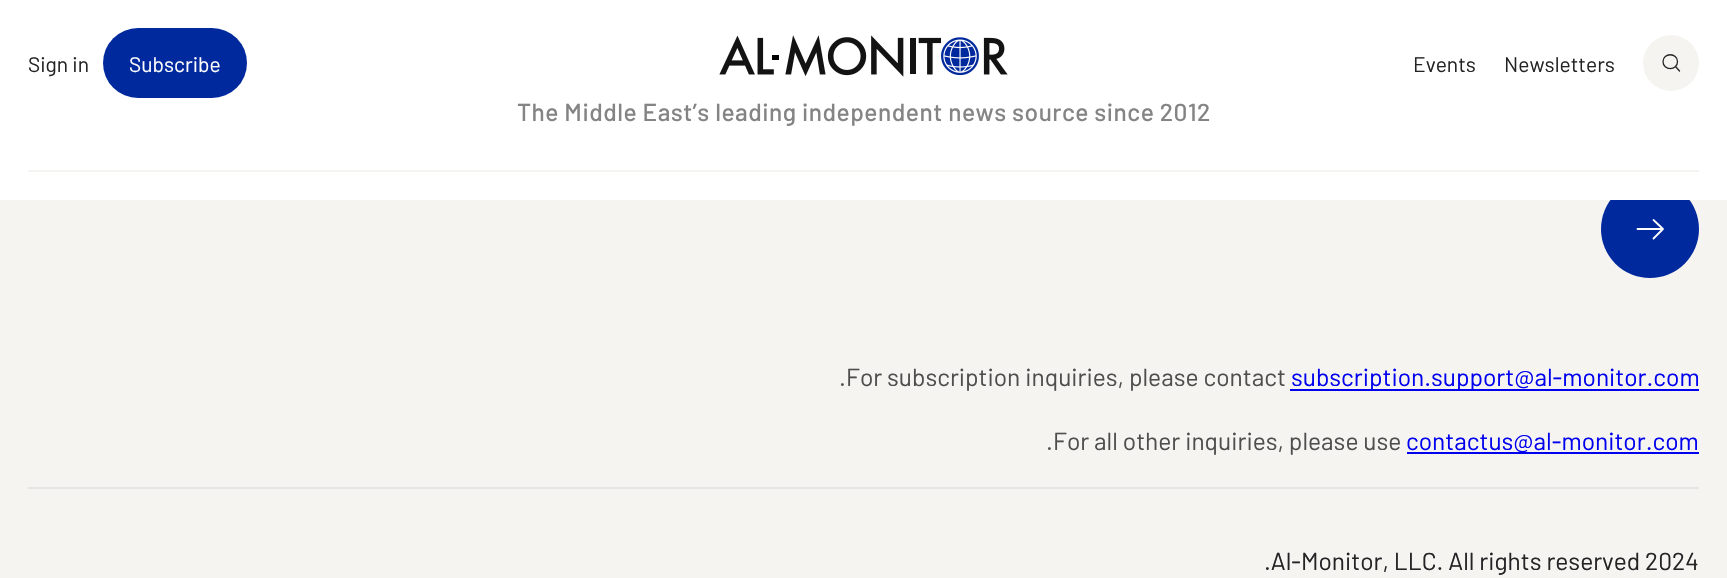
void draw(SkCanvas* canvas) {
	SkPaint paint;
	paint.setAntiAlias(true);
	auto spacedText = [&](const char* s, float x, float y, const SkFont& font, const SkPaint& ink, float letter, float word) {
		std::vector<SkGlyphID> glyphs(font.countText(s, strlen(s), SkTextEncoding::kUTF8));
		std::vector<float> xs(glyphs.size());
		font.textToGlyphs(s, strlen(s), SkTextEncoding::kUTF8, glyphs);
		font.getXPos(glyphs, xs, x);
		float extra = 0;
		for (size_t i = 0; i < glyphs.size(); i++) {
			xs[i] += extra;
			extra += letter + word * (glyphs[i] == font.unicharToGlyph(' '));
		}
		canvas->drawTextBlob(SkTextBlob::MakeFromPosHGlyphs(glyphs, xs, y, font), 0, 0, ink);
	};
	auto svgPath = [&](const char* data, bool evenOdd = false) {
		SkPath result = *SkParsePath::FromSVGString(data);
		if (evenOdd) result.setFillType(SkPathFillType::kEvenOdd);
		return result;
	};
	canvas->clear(0xfff6f4f1);
	paint.setColor(0xff00299d);
	canvas->drawCircle(1650, 229, 49, paint);
	paint.setColor(0xffffffff);
	canvas->drawRect(SkRect::MakeXYWH(0, 0, 1727, 200), paint);
	SkFont f1(fontMgr->matchFamilyStyle("Barlow", SkFontStyle::Normal()), 21);
	f1.setSubpixel(true);
	paint.setColor(0xff242424);
	canvas->drawString("Sign in", 28, 72, f1, paint);
	paint.setColor(0xff00299d);
	canvas->drawRoundRect(SkRect::MakeXYWH(103, 28, 144, 70), 35, 35, paint);
	paint.setColor(0xffffffff);
	canvas->drawString("Subscribe", 129, 72, f1, paint);
	canvas->drawImageRect(SkImages::DeferredFromEncodedData(SkData::MakeFromFileName("img1.png")), SkRect::MakeXYWH(719, 35, 289, 42), SkSamplingOptions());
	paint.setColor(0xff242424);
	canvas->drawString("Events", 1413, 72, f1, paint);
	canvas->drawString("Newsletters", 1504, 72, f1, paint);
	paint.setColor(0xfff6f4f1);
	canvas->drawCircle(1671, 63, 28, paint);
	paint.setStroke(true);
	paint.setStrokeWidth(1.3);
	paint.setStrokeCap(SkPaint::kRound_Cap);
	paint.setStrokeJoin(SkPaint::kRound_Join);
	paint.setColor(0xff242424);
	canvas->drawPath(svgPath("M1679.5 71L1675.5 66.5M1663 61.5C1663 52.5 1677.5 52.5 1677.5 61.5C1677.5 71 1663 71 1663 61.5Z"), paint);
	paint.setStroke(false);
	paint.setColor(0xfff6f4f1);
	canvas->drawRect(SkRect::MakeXYWH(28, 170, 1671, 2), paint);
	SkFont f2(fontMgr->matchFamilyStyle("Barlow", SkFontStyle(500, SkFontStyle::kNormal_Width, SkFontStyle::kUpright_Slant)), 24.5);
	f2.setSubpixel(true);
	paint.setColor(0xff848484);
	spacedText("The Middle Eastʼs leading independent news source since 2012", 517, 121, f2, paint, 0.5, 0);
	paint.setStroke(true);
	paint.setStrokeWidth(1.8);
	paint.setColor(0xffffffff);
	canvas->drawPath(svgPath("M1653.5 220L1663 229L1653.5 238.5M1662.5 229H1637.5"), paint);
	paint.setStroke(false);
	paint.setColor(0xffe5e5e5);
	canvas->drawRect(SkRect::MakeXYWH(28, 487, 1671, 2), paint);
	SkFont f3(fontMgr->matchFamilyStyle("Barlow", SkFontStyle::Normal()), 24.5);
	f3.setSubpixel(true);
	paint.setColor(0xff4e4e4d);
	canvas->drawString(".", 839, 386, f3, paint);
	canvas->drawString("For subscription inquiries, please contact", 846, 386, f3, paint);
	paint.setColor(0xff0000ee);
	canvas->drawRect(SkRect::MakeXYWH(1290, 389, 409, 2), paint);
	canvas->drawString("subscription.support@al-monitor.com", 1291, 386, f3, paint);
	paint.setColor(0xff4e4e4d);
	canvas->drawString(".", 1046, 450, f3, paint);
	canvas->drawString("For all other inquiries, please use", 1053, 450, f3, paint);
	paint.setColor(0xff0000ee);
	canvas->drawRect(SkRect::MakeXYWH(1407, 452, 292, 2), paint);
	canvas->drawString("contactus@al-monitor.com", 1406, 450, f3, paint);
	paint.setColor(0xff242424);
	canvas->drawString(".Al-Monitor, LLC. All rights reserved 2024", 1264, 570, f3, paint);
}
